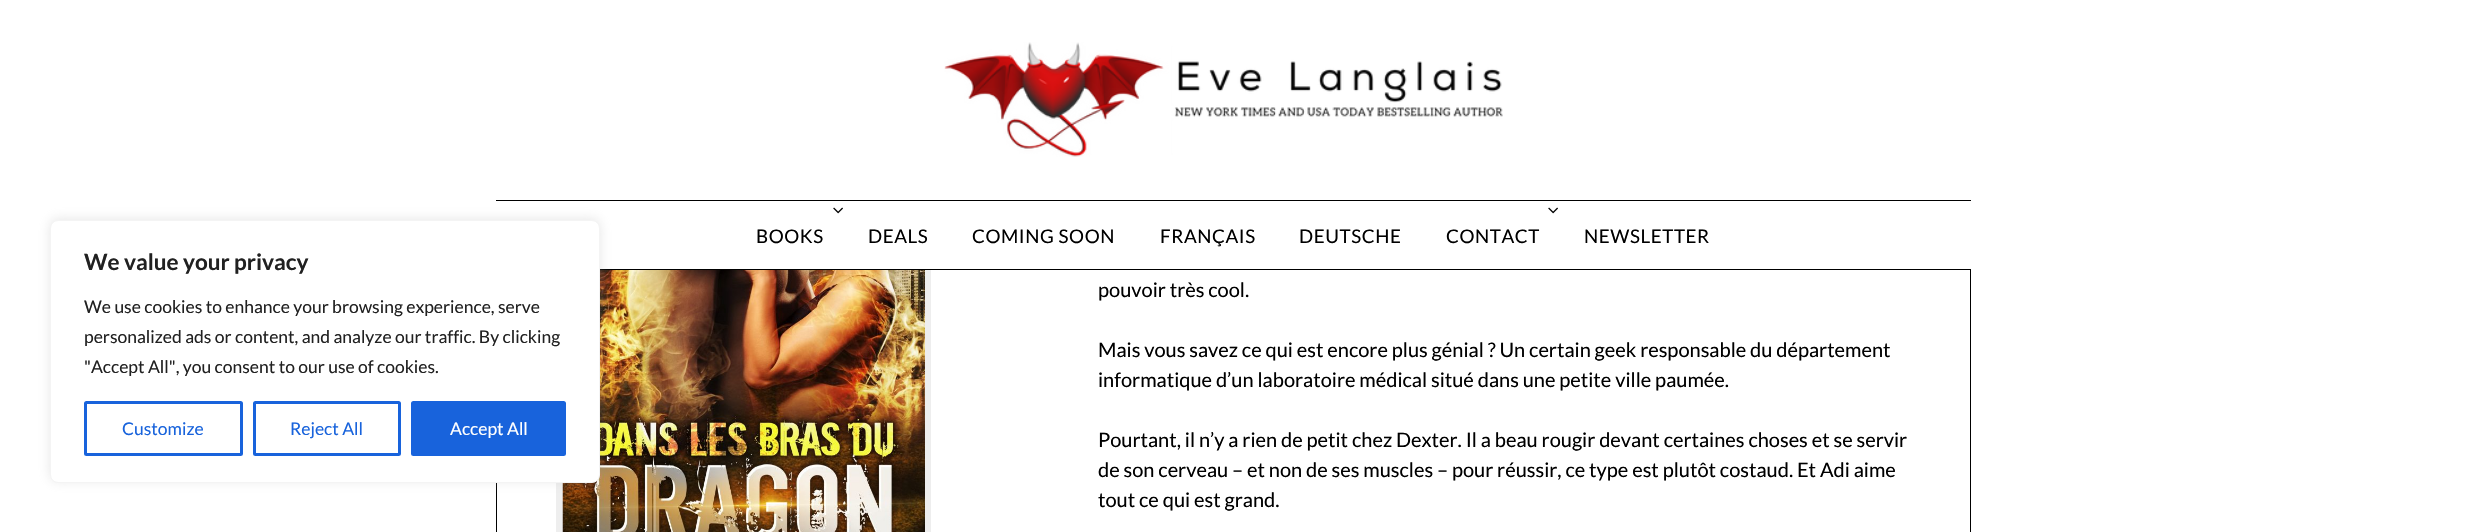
void draw(SkCanvas* canvas) {
	SkPaint paint;
	paint.setAntiAlias(true);
	auto spacedText = [&](const char* s, float x, float y, const SkFont& font, const SkPaint& ink, float letter, float word) {
		std::vector<SkGlyphID> glyphs(font.countText(s, strlen(s), SkTextEncoding::kUTF8));
		std::vector<float> xs(glyphs.size());
		font.textToGlyphs(s, strlen(s), SkTextEncoding::kUTF8, glyphs);
		font.getXPos(glyphs, xs, x);
		float extra = 0;
		for (size_t i = 0; i < glyphs.size(); i++) {
			xs[i] += extra;
			extra += letter + word * (glyphs[i] == font.unicharToGlyph(' '));
		}
		canvas->drawTextBlob(SkTextBlob::MakeFromPosHGlyphs(glyphs, xs, y, font), 0, 0, ink);
	};
	canvas->clear(0xffffffff);
	paint.setStroke(true);
	paint.setStrokeWidth(1);
	paint.setColor(0xff000000);
	canvas->drawRect(SkRect::MakeXYWH(496.5, -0.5, 1474, 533), paint);
	paint.setStroke(false);
	paint.setColor(0xffeeeeee);
	canvas->drawRect(SkRect::MakeXYWH(562, 483, 1, 49), paint);
	paint.setStroke(true);
	paint.setStrokeWidth(6);
	canvas->drawRect(SkRect::MakeXYWH(559, 98, 369, 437), paint);
	paint.setStroke(false);
	paint.setColor(0xffffffff);
	canvas->drawRect(SkRect::MakeXYWH(496, 0, 1475, 270), paint);
	paint.setColor(0xff000000);
	canvas->drawRect(SkRect::MakeXYWH(496, 200, 1475, 1), paint);
	canvas->drawRect(SkRect::MakeXYWH(600, 269, 1371, 1), paint);
	canvas->drawImageRect(SkImages::DeferredFromEncodedData(SkData::MakeFromFileName("img3.png")), SkRect::MakeXYWH(562, 270, 363, 262), SkSamplingOptions());
	paint.setColor(0x4dacabab);
	paint.setMaskFilter(SkMaskFilter::MakeBlur(kNormal_SkBlurStyle, 6));
	canvas->drawRoundRect(SkRect::MakeXYWH(50, 219, 550, 262), 8, 8, paint);
	paint.setMaskFilter(nullptr);
	paint.setColor(0xffffffff);
	canvas->drawRoundRect(SkRect::MakeXYWH(50.5, 220.5, 549, 262), 7.5, 7.5, paint);
	paint.setStroke(true);
	paint.setStrokeWidth(1);
	paint.setColor(0xfff4f4f4);
	canvas->drawRoundRect(SkRect::MakeXYWH(50.5, 220.5, 549, 262), 7.5, 7.5, paint);
	SkFont f1(fontMgr->matchFamilyStyle("Lato", SkFontStyle::Bold()), 22.5);
	f1.setSubpixel(true);
	paint.setStroke(false);
	paint.setColor(0xff212121);
	canvas->drawString("We value your privacy", 84, 270, f1, paint);
	SkFont f2(fontMgr->matchFamilyStyle("Lato", SkFontStyle::Normal()), 17.5);
	f2.setSubpixel(true);
	canvas->drawString("We use cookies to enhance your browsing experience, serve", 84, 313, f2, paint);
	canvas->drawString("personalized ads or content, and analyze our traffic. By clicking", 84, 343, f2, paint);
	canvas->drawString("\"Accept All\", you consent to our use of cookies.", 84, 373, f2, paint);
	paint.setStroke(true);
	paint.setStrokeWidth(3);
	paint.setColor(0xff1863dc);
	canvas->drawRoundRect(SkRect::MakeXYWH(85.5, 402.5, 156, 52), 1, 1, paint);
	paint.setStroke(false);
	canvas->drawString("Customize", 122, 435, f2, paint);
	paint.setStroke(true);
	canvas->drawRoundRect(SkRect::MakeXYWH(254.5, 402.5, 145, 52), 1, 1, paint);
	paint.setStroke(false);
	canvas->drawString("Reject All", 290, 435, f2, paint);
	canvas->drawRoundRect(SkRect::MakeXYWH(412.5, 402.5, 152, 52), 1, 1, paint);
	paint.setStroke(true);
	canvas->drawRoundRect(SkRect::MakeXYWH(412.5, 402.5, 152, 52), 1, 1, paint);
	paint.setStroke(false);
	paint.setColor(0xffffffff);
	canvas->drawString("Accept All", 450, 435, f2, paint);
	canvas->drawImageRect(SkImages::DeferredFromEncodedData(SkData::MakeFromFileName("img1.png")), SkRect::MakeXYWH(944, 42, 559, 115), SkSamplingOptions());
	canvas->drawImageRect(SkImages::DeferredFromEncodedData(SkData::MakeFromFileName("img2.png")), SkRect::MakeXYWH(833, 207, 10, 7), SkSamplingOptions());
	SkFont f3(fontMgr->matchFamilyStyle("Lato", SkFontStyle::Normal()), 18.75);
	f3.setSubpixel(true);
	paint.setColor(0xff000000);
	spacedText("BOOKS", 756, 243, f3, paint, 0.6, 0);
	spacedText("DEALS", 868, 243, f3, paint, 0.6, 0);
	spacedText("COMING SOON", 972, 243, f3, paint, 0.6, 0);
	spacedText("FRANÇAIS", 1160, 243, f3, paint, 0.6, 0);
	spacedText("DEUTSCHE", 1299, 243, f3, paint, 0.6, 0);
	canvas->drawImageRect(SkImages::DeferredFromEncodedData(SkData::MakeFromFileName("img2.png")), SkRect::MakeXYWH(1548, 207, 10, 7), SkSamplingOptions());
	spacedText("CONTACT", 1446, 243, f3, paint, 0.6, 0);
	spacedText("NEWSLETTER", 1584, 243, f3, paint, 0.6, 0);
	SkFont f4(fontMgr->matchFamilyStyle("Lato", SkFontStyle::Normal()), 20);
	f4.setSubpixel(true);
	canvas->drawString("pouvoir très cool.", 1098, 297, f4, paint);
	canvas->drawString("Mais vous savez ce qui est encore plus génial ? Un certain geek responsable du département", 1098, 357, f4, paint);
	canvas->drawString("informatique d’un laboratoire médical situé dans une petite ville paumée.", 1098, 387, f4, paint);
	canvas->drawString("Pourtant, il n’y a rien de petit chez Dexter. Il a beau rougir devant certaines choses et se servir", 1098, 447, f4, paint);
	canvas->drawString("de son cerveau – et non de ses muscles – pour réussir, ce type est plutôt costaud. Et Adi aime", 1098, 477, f4, paint);
	canvas->drawString("tout ce qui est grand.", 1098, 507, f4, paint);
}
